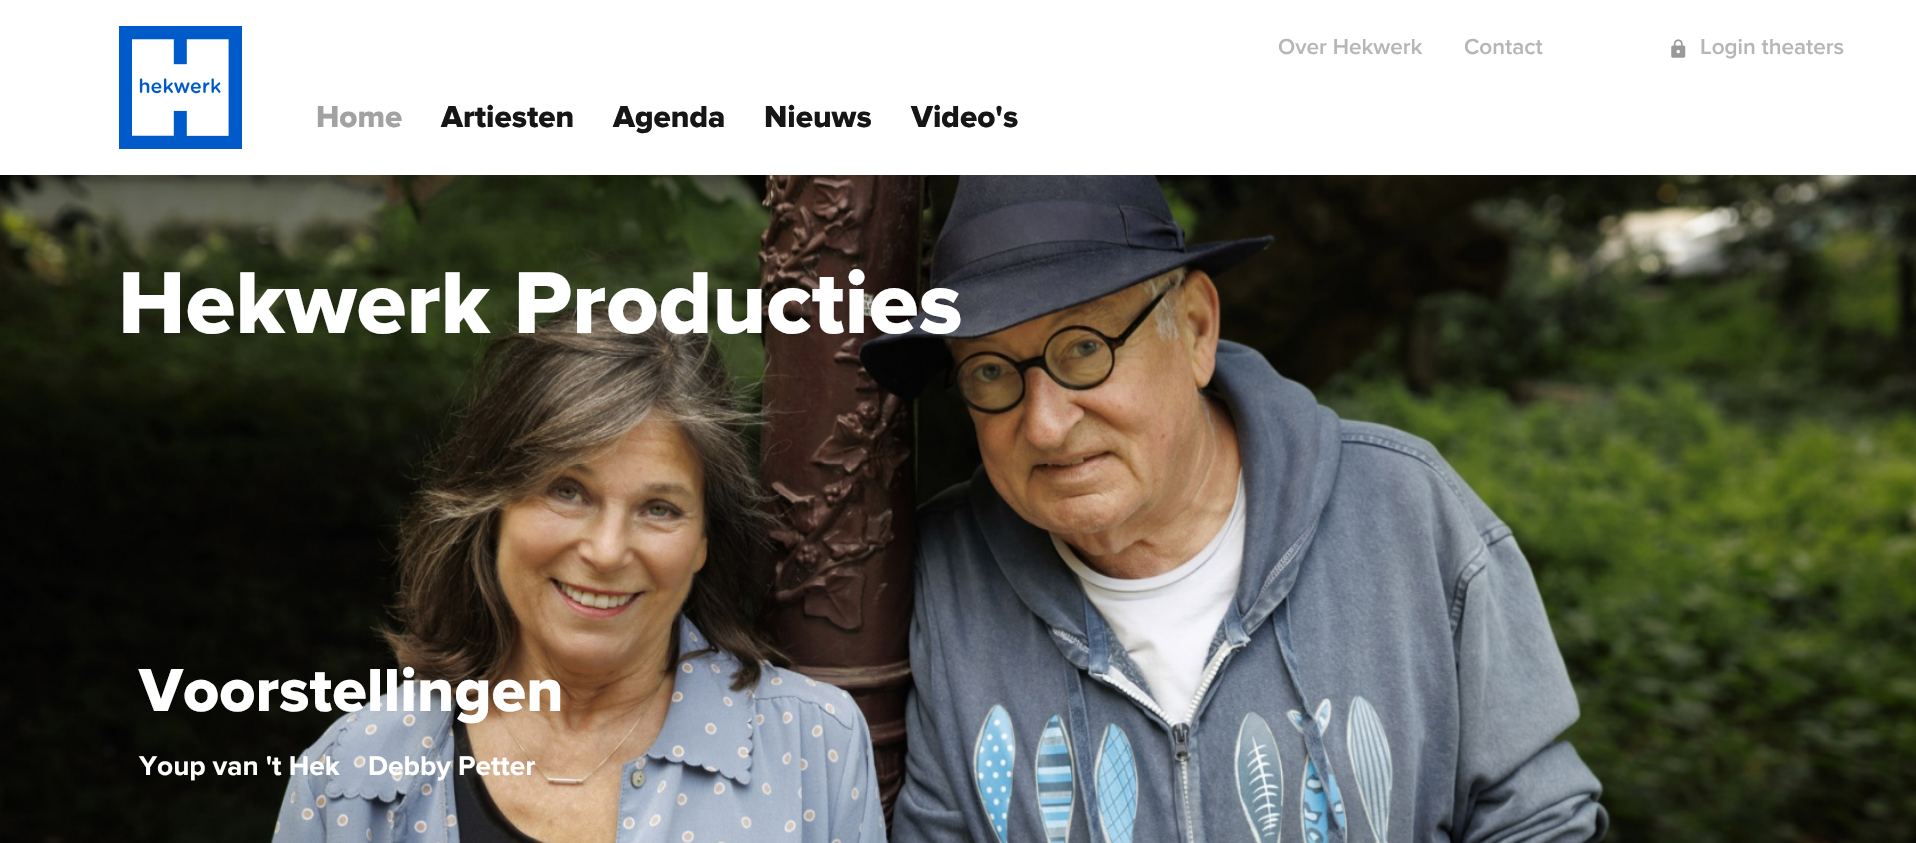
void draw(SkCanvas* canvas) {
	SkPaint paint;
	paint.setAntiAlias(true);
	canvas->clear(0xffffffff);
	paint.setColor(0xff005ac9);
	canvas->drawRect(SkRect::MakeXYWH(119, 26, 123, 123), paint);
	canvas->drawImageRect(SkImages::DeferredFromEncodedData(SkData::MakeFromFileName("img1.png")), SkRect::MakeXYWH(132, 39, 97, 97), SkSamplingOptions());
	SkFont f1(fontMgr->matchFamilyStyle("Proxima", SkFontStyle(600, SkFontStyle::kNormal_Width, SkFontStyle::kUpright_Slant)), 22.5);
	f1.setSubpixel(true);
	paint.setColor(0xffb6b6b6);
	canvas->drawString("Over Hekwerk", 1278, 54, f1, paint);
	canvas->drawString("Contact", 1464, 54, f1, paint);
	canvas->drawImageRect(SkImages::DeferredFromEncodedData(SkData::MakeFromFileName("img2.png")), SkRect::MakeXYWH(1671, 39, 15, 19), SkSamplingOptions());
	canvas->drawString("Login theaters", 1700, 54, f1, paint);
	SkFont f2(fontMgr->matchFamilyStyle("Proxima", SkFontStyle::Bold()), 31.5);
	f2.setSubpixel(true);
	paint.setColor(0xffa2a2a2);
	canvas->drawString("Home", 316, 127, f2, paint);
	paint.setColor(0xff161616);
	canvas->drawString("Artiesten", 441, 127, f2, paint);
	canvas->drawString("Agenda", 613, 127, f2, paint);
	canvas->drawString("Nieuws", 764, 127, f2, paint);
	canvas->drawString("Video's", 911, 127, f2, paint);
	canvas->drawImageRect(SkImages::DeferredFromEncodedData(SkData::MakeFromFileName("img3.png")), SkRect::MakeXYWH(0, 175, 1916, 668), SkSamplingOptions());
	SkFont f3(fontMgr->matchFamilyStyle("Proxima", SkFontStyle::Bold()), 91);
	f3.setSubpixel(true);
	paint.setColor(0xffffffff);
	canvas->drawString("Hekwerk Producties", 118, 333, f3, paint);
	SkFont f4(fontMgr->matchFamilyStyle("Proxima", SkFontStyle::Bold()), 63);
	f4.setSubpixel(true);
	canvas->drawString("Voorstellingen", 139, 711, f4, paint);
	SkFont f5(fontMgr->matchFamilyStyle("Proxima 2", SkFontStyle::Bold()), 28);
	f5.setSubpixel(true);
	canvas->drawString("Youp van 't Hek", 139, 775, f5, paint);
	canvas->drawString("Debby Petter", 368, 775, f5, paint);
}
